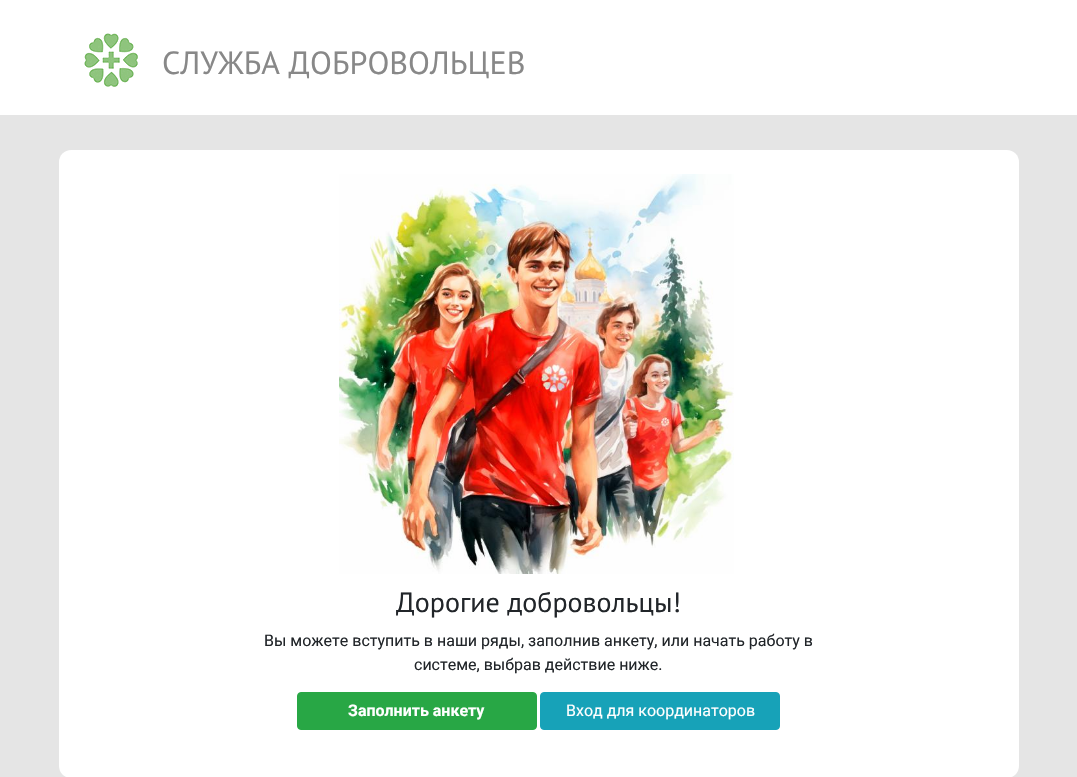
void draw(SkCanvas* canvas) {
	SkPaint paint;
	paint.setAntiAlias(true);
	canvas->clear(0xffe5e5e5);
	paint.setColor(0xffffffff);
	canvas->drawRect(SkRect::MakeXYWH(0, 0, 1077, 115), paint);
	canvas->drawImageRect(SkImages::DeferredFromEncodedData(SkData::MakeFromFileName("img1.png")), SkRect::MakeXYWH(84, 33, 54, 54), SkSamplingOptions());
	SkFont f1(fontMgr->matchFamilyStyle("PT Sans", SkFontStyle::Normal()), 32);
	f1.setSubpixel(true);
	paint.setColor(0xff888888);
	canvas->drawString("СЛУЖБА ДОБРОВОЛЬЦЕВ", 162, 74, f1, paint);
	paint.setColor(0xffffffff);
	canvas->drawRoundRect(SkRect::MakeXYWH(59, 150, 960, 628), 12, 12, paint);
	canvas->drawImageRect(SkImages::DeferredFromEncodedData(SkData::MakeFromFileName("img2.png")), SkRect::MakeXYWH(339, 174, 395, 400), SkSamplingOptions());
	SkFont f2(fontMgr->matchFamilyStyle("PT Sans", SkFontStyle::Normal()), 28);
	f2.setSubpixel(true);
	paint.setColor(0xff212529);
	canvas->drawString("Дорогие добровольцы!", 396, 612, f2, paint);
	SkFont f3(fontMgr->matchFamilyStyle("Roboto", SkFontStyle::Normal()), 16);
	f3.setSubpixel(true);
	canvas->drawString("Вы можете вступить в наши ряды, заполнив анкету, или начать работу в", 264, 646, f3, paint);
	canvas->drawString("системе, выбрав действие ниже.", 414, 670, f3, paint);
	paint.setColor(0xff28a745);
	canvas->drawRoundRect(SkRect::MakeXYWH(297.5, 692.5, 239, 37), 3.5, 3.5, paint);
	paint.setStroke(true);
	paint.setStrokeWidth(1);
	canvas->drawRoundRect(SkRect::MakeXYWH(297.5, 692.5, 239, 37), 3.5, 3.5, paint);
	SkFont f4(fontMgr->matchFamilyStyle("Roboto", SkFontStyle::Bold()), 16);
	f4.setSubpixel(true);
	paint.setStroke(false);
	paint.setColor(0xffffffff);
	canvas->drawString("Заполнить анкету", 348, 716, f4, paint);
	paint.setColor(0xff17a2b8);
	canvas->drawRoundRect(SkRect::MakeXYWH(540.5, 692.5, 239, 37), 3.5, 3.5, paint);
	paint.setStroke(true);
	canvas->drawRoundRect(SkRect::MakeXYWH(540.5, 692.5, 239, 37), 3.5, 3.5, paint);
	paint.setStroke(false);
	paint.setColor(0xffffffff);
	canvas->drawString("Вход для координаторов", 566, 716, f3, paint);
}
